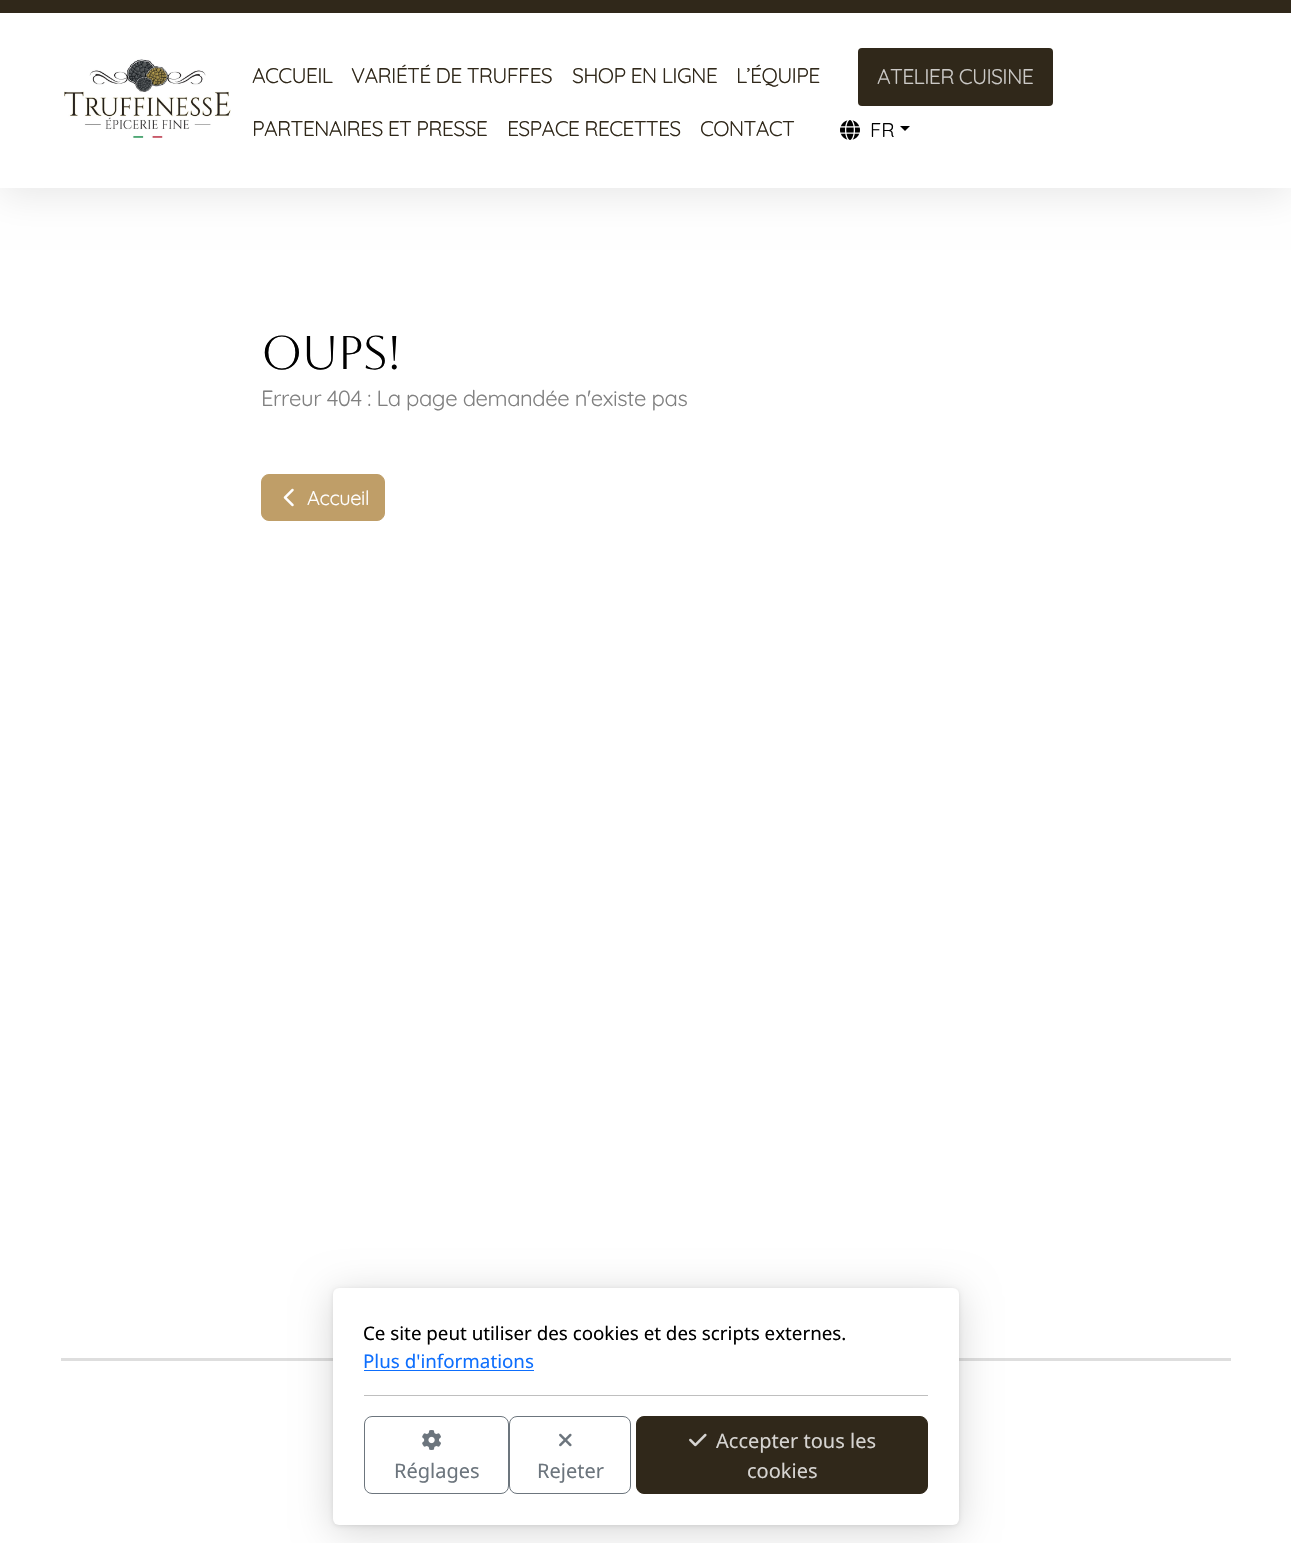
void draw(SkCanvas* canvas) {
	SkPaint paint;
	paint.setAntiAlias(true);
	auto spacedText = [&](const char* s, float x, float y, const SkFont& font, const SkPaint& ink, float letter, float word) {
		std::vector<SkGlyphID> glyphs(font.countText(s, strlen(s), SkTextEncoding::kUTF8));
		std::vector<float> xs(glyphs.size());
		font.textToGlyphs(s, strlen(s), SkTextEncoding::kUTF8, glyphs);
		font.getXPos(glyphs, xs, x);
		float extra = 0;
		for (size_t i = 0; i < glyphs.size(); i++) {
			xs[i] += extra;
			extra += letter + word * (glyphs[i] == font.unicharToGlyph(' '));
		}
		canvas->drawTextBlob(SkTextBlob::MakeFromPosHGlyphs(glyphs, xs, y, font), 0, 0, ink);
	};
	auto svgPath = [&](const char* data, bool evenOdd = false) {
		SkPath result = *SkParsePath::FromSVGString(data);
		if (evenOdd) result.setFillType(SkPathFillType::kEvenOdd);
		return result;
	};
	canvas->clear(0xffffffff);
	paint.setColor(0x17000000);
	paint.setMaskFilter(SkMaskFilter::MakeBlur(kNormal_SkBlurStyle, 18));
	canvas->drawRect(SkRect::MakeXYWH(0, 9, 1291, 187), paint);
	paint.setMaskFilter(nullptr);
	paint.setColor(0xffffffff);
	canvas->drawRect(SkRect::MakeXYWH(0, 13, 1291, 175), paint);
	paint.setColor(0xff30281a);
	canvas->drawRect(SkRect::MakeXYWH(0, 0, 1291, 13), paint);
	canvas->drawImageRect(SkImages::DeferredFromEncodedData(SkData::MakeFromFileName("img1.png")), SkRect::MakeXYWH(64, 59, 167, 79), SkSamplingOptions());
	SkFont f1(fontMgr->matchFamilyStyle("Quicksand", SkFontStyle(300, SkFontStyle::kNormal_Width, SkFontStyle::kUpright_Slant)), 21.25);
	f1.setSubpixel(true);
	spacedText("ACCUEIL", 252, 83, f1, paint, -0.7, 0);
	spacedText("VARIÉTÉ DE TRUFFES", 351, 83, f1, paint, -0.7, 0);
	spacedText("SHOP EN LIGNE", 572, 83, f1, paint, -0.7, 0);
	spacedText("L’ÉQUIPE", 736, 83, f1, paint, -0.7, 0);
	canvas->drawRoundRect(SkRect::MakeXYWH(858, 48, 195, 58), 4, 4, paint);
	paint.setColor(0xffcbc9c6);
	spacedText("ATELIER CUISINE", 877, 84, f1, paint, -0.7, 0);
	paint.setColor(0xff30281a);
	spacedText("PARTENAIRES ET PRESSE", 252, 136, f1, paint, -0.7, 0);
	spacedText("ESPACE RECETTES", 507, 136, f1, paint, -0.7, 0);
	spacedText("CONTACT", 700, 136, f1, paint, -0.7, 0);
	canvas->drawImageRect(SkImages::DeferredFromEncodedData(SkData::MakeFromFileName("img2.png")), SkRect::MakeXYWH(840, 120, 20, 20), SkSamplingOptions());
	SkFont f2(fontMgr->matchFamilyStyle("Quicksand", SkFontStyle(300, SkFontStyle::kNormal_Width, SkFontStyle::kUpright_Slant)), 20);
	f2.setSubpixel(true);
	paint.setColor(0xff000000);
	canvas->drawString("FR", 870, 137, f2, paint);
	canvas->drawPath(svgPath("M900 126H910L905 131Z"), paint);
	SkFont f3(fontMgr->matchFamilyStyle("Aboreto", SkFontStyle::Normal()), 47);
	f3.setSubpixel(true);
	spacedText("Oups!", 261, 369, f3, paint, -1.5, 0);
	SkFont f4(fontMgr->matchFamilyStyle("Quicksand", SkFontStyle(300, SkFontStyle::kNormal_Width, SkFontStyle::kUpright_Slant)), 22);
	f4.setSubpixel(true);
	paint.setColor(0xff808080);
	spacedText("Erreur 404 : La page demandée n'existe pas", 261, 406, f4, paint, -0.45, 0);
	paint.setColor(0xffbf9e68);
	canvas->drawRoundRect(SkRect::MakeXYWH(261.5, 474.5, 123, 46), 7.5, 7.5, paint);
	paint.setStroke(true);
	paint.setStrokeWidth(1);
	canvas->drawRoundRect(SkRect::MakeXYWH(261.5, 474.5, 123, 46), 7.5, 7.5, paint);
	canvas->drawImageRect(SkImages::DeferredFromEncodedData(SkData::MakeFromFileName("img3.png")), SkRect::MakeXYWH(283, 488, 11, 19), SkSamplingOptions());
	paint.setStroke(false);
	paint.setColor(0xffffffff);
	spacedText("Accueil", 307, 505, f2, paint, -0.45, 0);
	paint.setColor(0xffdedede);
	canvas->drawRect(SkRect::MakeXYWH(61, 1358, 1170, 3), paint);
	paint.setColor(0x29000000);
	paint.setMaskFilter(SkMaskFilter::MakeBlur(kNormal_SkBlurStyle, 19));
	canvas->drawRoundRect(SkRect::MakeXYWH(333, 1294, 626, 237), 6, 6, paint);
	paint.setMaskFilter(nullptr);
	paint.setColor(0x1a000000);
	paint.setMaskFilter(SkMaskFilter::MakeBlur(kNormal_SkBlurStyle, 2));
	canvas->drawRoundRect(SkRect::MakeXYWH(333, 1289, 626, 237), 6, 6, paint);
	paint.setMaskFilter(nullptr);
	paint.setColor(0xffffffff);
	canvas->drawRoundRect(SkRect::MakeXYWH(333, 1288, 626, 237), 6, 6, paint);
	SkFont f5(fontMgr->matchFamilyStyle("Noto Sans", SkFontStyle::Normal()), 18.75);
	f5.setSubpixel(true);
	paint.setColor(0xff000000);
	canvas->drawString("Ce site peut utiliser des cookies et des scripts externes.", 363, 1340, f5, paint);
	paint.setColor(0xff0d6efd);
	canvas->drawString("Plus d'informations", 363, 1368, f5, paint);
	canvas->drawRect(SkRect::MakeXYWH(364, 1370, 170, 1), paint);
	paint.setColor(0xffbfbfbf);
	canvas->drawRect(SkRect::MakeXYWH(364, 1395, 564, 1), paint);
	paint.setStroke(true);
	paint.setColor(0xff6c757d);
	canvas->drawRoundRect(SkRect::MakeXYWH(364.5, 1416.5, 144, 77), 7.5, 7.5, paint);
	canvas->drawImageRect(SkImages::DeferredFromEncodedData(SkData::MakeFromFileName("img4.png")), SkRect::MakeXYWH(422, 1430, 19, 20), SkSamplingOptions());
	SkFont f6(fontMgr->matchFamilyStyle("Noto Sans", SkFontStyle::Normal()), 20);
	f6.setSubpixel(true);
	paint.setStroke(false);
	canvas->drawString("Réglages", 394, 1478, f6, paint);
	paint.setStroke(true);
	canvas->drawRoundRect(SkRect::MakeXYWH(509.5, 1416.5, 121, 77), 7.5, 7.5, paint);
	canvas->drawImageRect(SkImages::DeferredFromEncodedData(SkData::MakeFromFileName("img5.png")), SkRect::MakeXYWH(559, 1433, 13, 14), SkSamplingOptions());
	paint.setStroke(false);
	canvas->drawString("Rejeter", 537, 1478, f6, paint);
	paint.setColor(0xff30281a);
	canvas->drawRoundRect(SkRect::MakeXYWH(636.5, 1416.5, 291, 77), 7.5, 7.5, paint);
	paint.setStroke(true);
	canvas->drawRoundRect(SkRect::MakeXYWH(636.5, 1416.5, 291, 77), 7.5, 7.5, paint);
	canvas->drawImageRect(SkImages::DeferredFromEncodedData(SkData::MakeFromFileName("img6.png")), SkRect::MakeXYWH(689, 1433, 18, 14), SkSamplingOptions());
	paint.setStroke(false);
	paint.setColor(0xffd6d4d1);
	canvas->drawString("Accepter tous les", 716, 1448, f6, paint);
	canvas->drawString("cookies", 747, 1478, f6, paint);
}
